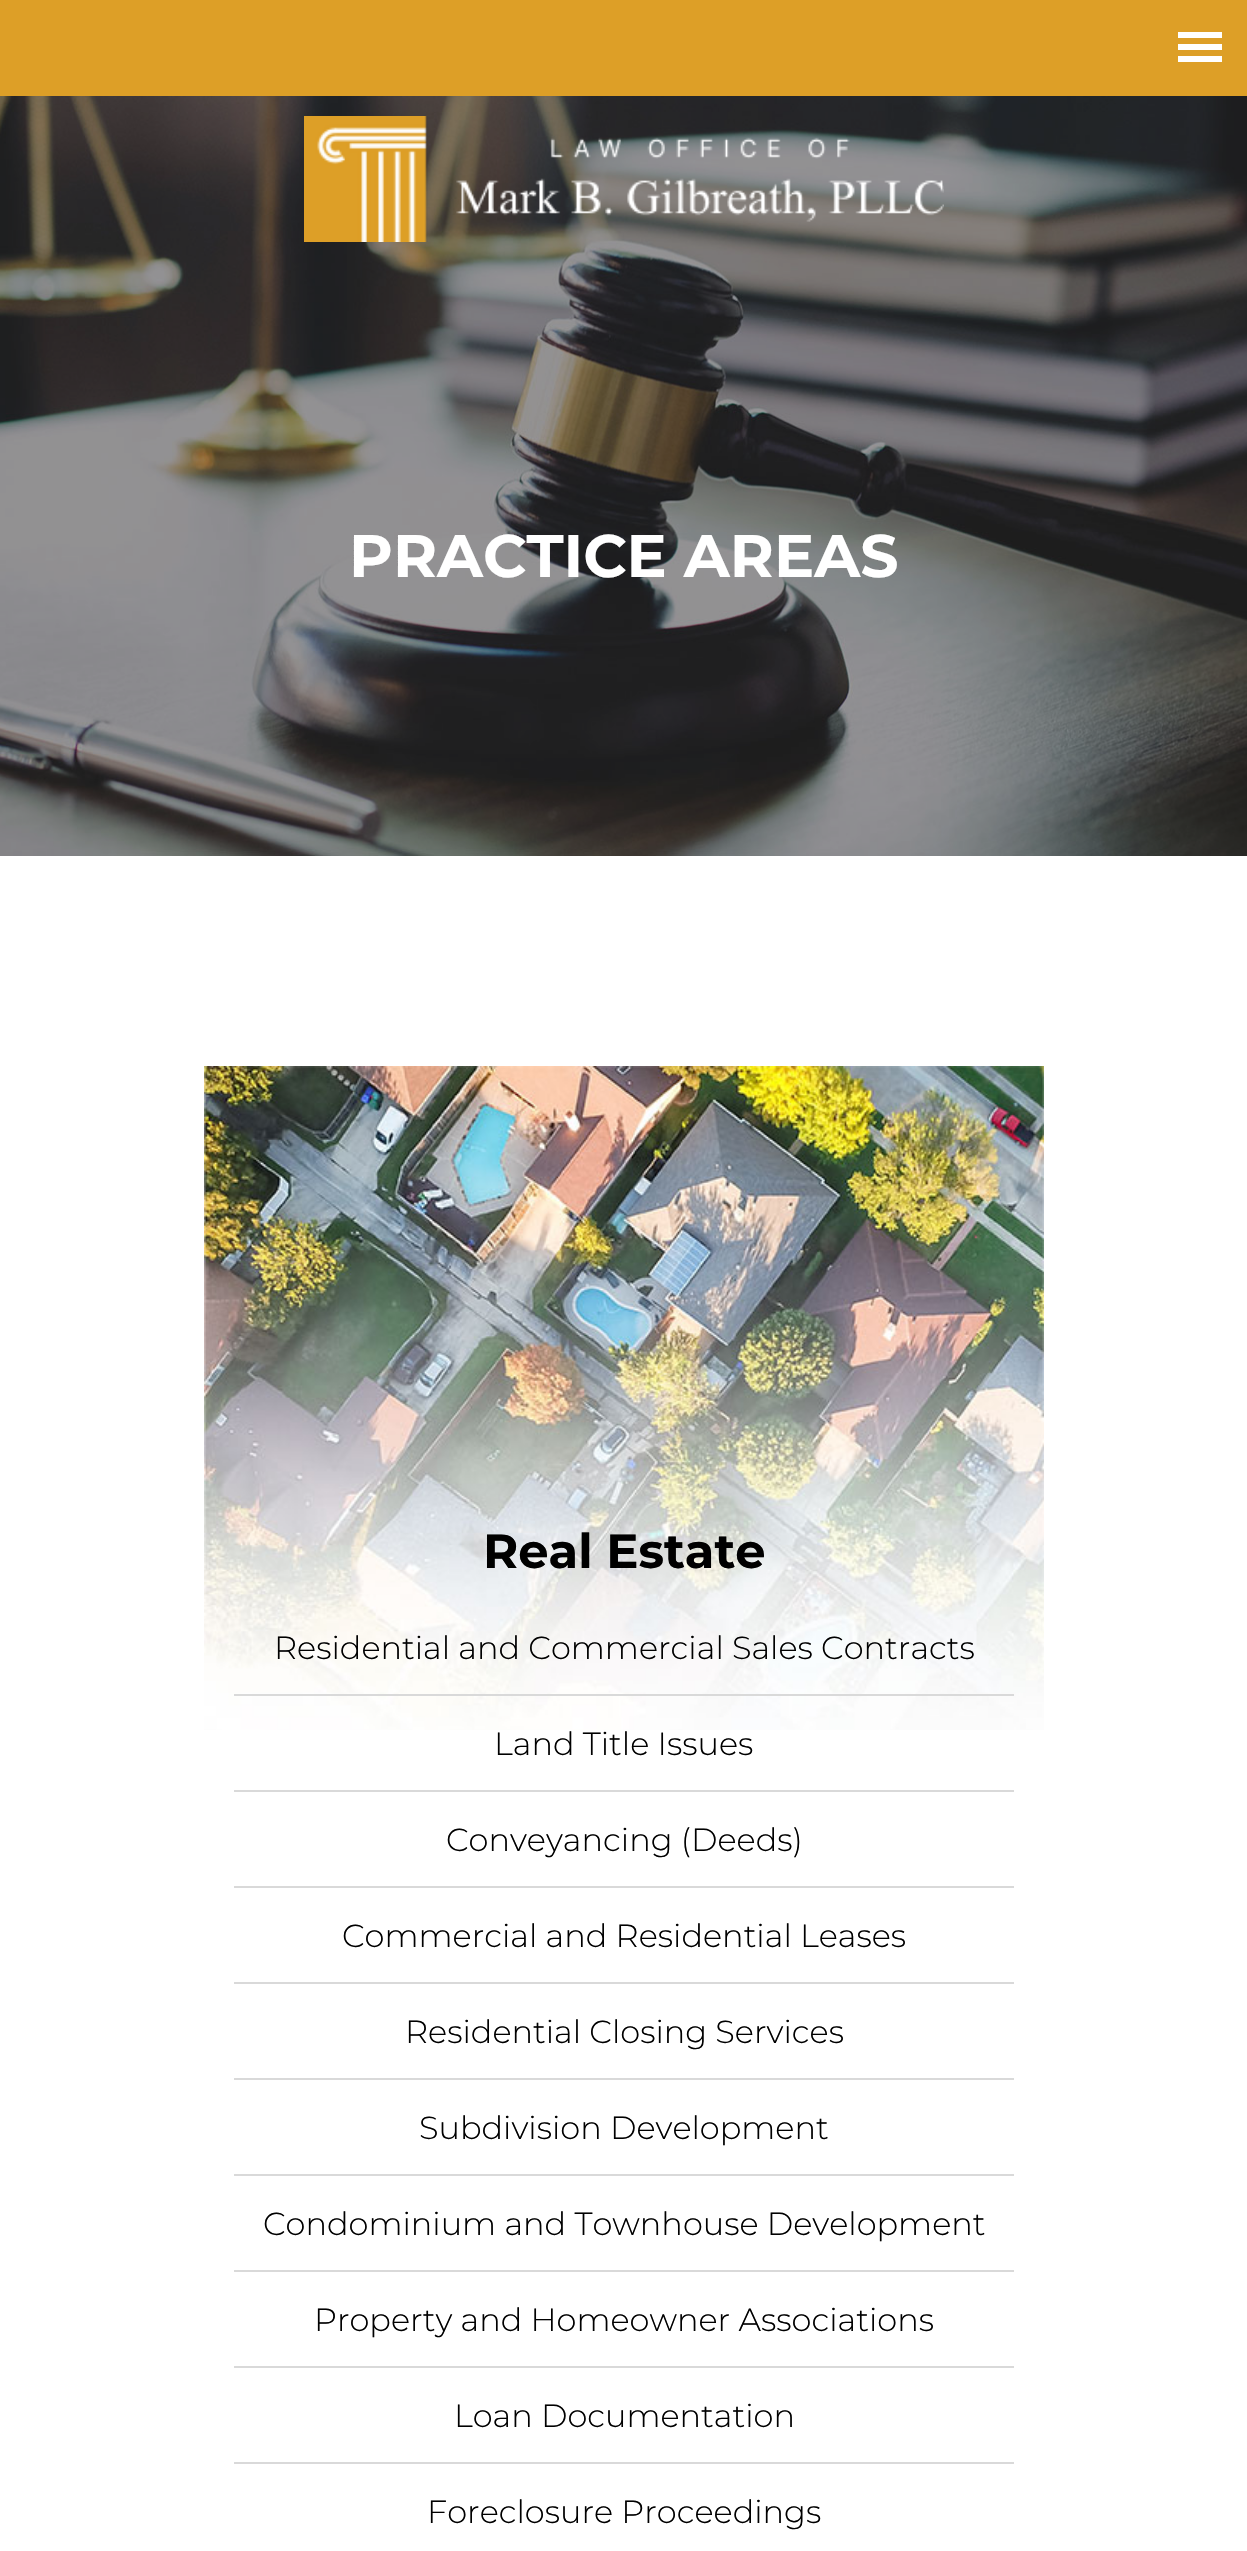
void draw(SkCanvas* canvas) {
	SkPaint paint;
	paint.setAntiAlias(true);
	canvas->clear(0xffffffff);
	paint.setColor(0xffdd9f27);
	canvas->drawRect(SkRect::MakeXYWH(0, 0, 1247, 96), paint);
	paint.setColor(0xffffffff);
	canvas->drawRect(SkRect::MakeXYWH(1178, 32, 44, 6), paint);
	canvas->drawRect(SkRect::MakeXYWH(1178, 44, 44, 6), paint);
	canvas->drawRect(SkRect::MakeXYWH(1178, 56, 44, 6), paint);
	canvas->drawImageRect(SkImages::DeferredFromEncodedData(SkData::MakeFromFileName("img2.png")), SkRect::MakeXYWH(0, 96, 1247, 760), SkSamplingOptions());
	canvas->drawImageRect(SkImages::DeferredFromEncodedData(SkData::MakeFromFileName("img1.png")), SkRect::MakeXYWH(304, 116, 640, 126), SkSamplingOptions());
	SkFont f1(fontMgr->matchFamilyStyle("Montserrat", SkFontStyle::Bold()), 60);
	f1.setSubpixel(true);
	canvas->drawString("PRACTICE AREAS", 349, 577, f1, paint);
	canvas->drawImageRect(SkImages::DeferredFromEncodedData(SkData::MakeFromFileName("img3.png")), SkRect::MakeXYWH(204, 1066, 840, 664), SkSamplingOptions());
	SkFont f2(fontMgr->matchFamilyStyle("Montserrat", SkFontStyle::Bold()), 48);
	f2.setSubpixel(true);
	paint.setColor(0xff000000);
	canvas->drawString("Real Estate", 483, 1568, f2, paint);
	paint.setColor(0xffd9d9d9);
	canvas->drawRect(SkRect::MakeXYWH(234, 1694, 780, 2), paint);
	SkFont f3(fontMgr->matchFamilyStyle("Montserrat", SkFontStyle(300, SkFontStyle::kNormal_Width, SkFontStyle::kUpright_Slant)), 32);
	f3.setSubpixel(true);
	paint.setColor(0xff000000);
	canvas->drawString("Residential and Commercial Sales Contracts", 274, 1659, f3, paint);
	paint.setColor(0xffd9d9d9);
	canvas->drawRect(SkRect::MakeXYWH(234, 1790, 780, 2), paint);
	paint.setColor(0xff000000);
	canvas->drawString("Land Title Issues", 494, 1755, f3, paint);
	paint.setColor(0xffd9d9d9);
	canvas->drawRect(SkRect::MakeXYWH(234, 1886, 780, 2), paint);
	paint.setColor(0xff000000);
	canvas->drawString("Conveyancing (Deeds)", 446, 1851, f3, paint);
	paint.setColor(0xffd9d9d9);
	canvas->drawRect(SkRect::MakeXYWH(234, 1982, 780, 2), paint);
	paint.setColor(0xff000000);
	canvas->drawString("Commercial and Residential Leases", 342, 1947, f3, paint);
	paint.setColor(0xffd9d9d9);
	canvas->drawRect(SkRect::MakeXYWH(234, 2078, 780, 2), paint);
	paint.setColor(0xff000000);
	canvas->drawString("Residential Closing Services", 405, 2043, f3, paint);
	paint.setColor(0xffd9d9d9);
	canvas->drawRect(SkRect::MakeXYWH(234, 2174, 780, 2), paint);
	paint.setColor(0xff000000);
	canvas->drawString("Subdivision Development", 419, 2139, f3, paint);
	paint.setColor(0xffd9d9d9);
	canvas->drawRect(SkRect::MakeXYWH(234, 2270, 780, 2), paint);
	paint.setColor(0xff000000);
	canvas->drawString("Condominium and Townhouse Development", 263, 2235, f3, paint);
	paint.setColor(0xffd9d9d9);
	canvas->drawRect(SkRect::MakeXYWH(234, 2366, 780, 2), paint);
	paint.setColor(0xff000000);
	canvas->drawString("Property and Homeowner Associations", 314, 2331, f3, paint);
	paint.setColor(0xffd9d9d9);
	canvas->drawRect(SkRect::MakeXYWH(234, 2462, 780, 2), paint);
	paint.setColor(0xff000000);
	canvas->drawString("Loan Documentation", 454, 2427, f3, paint);
	canvas->drawString("Foreclosure Proceedings", 427, 2523, f3, paint);
}
